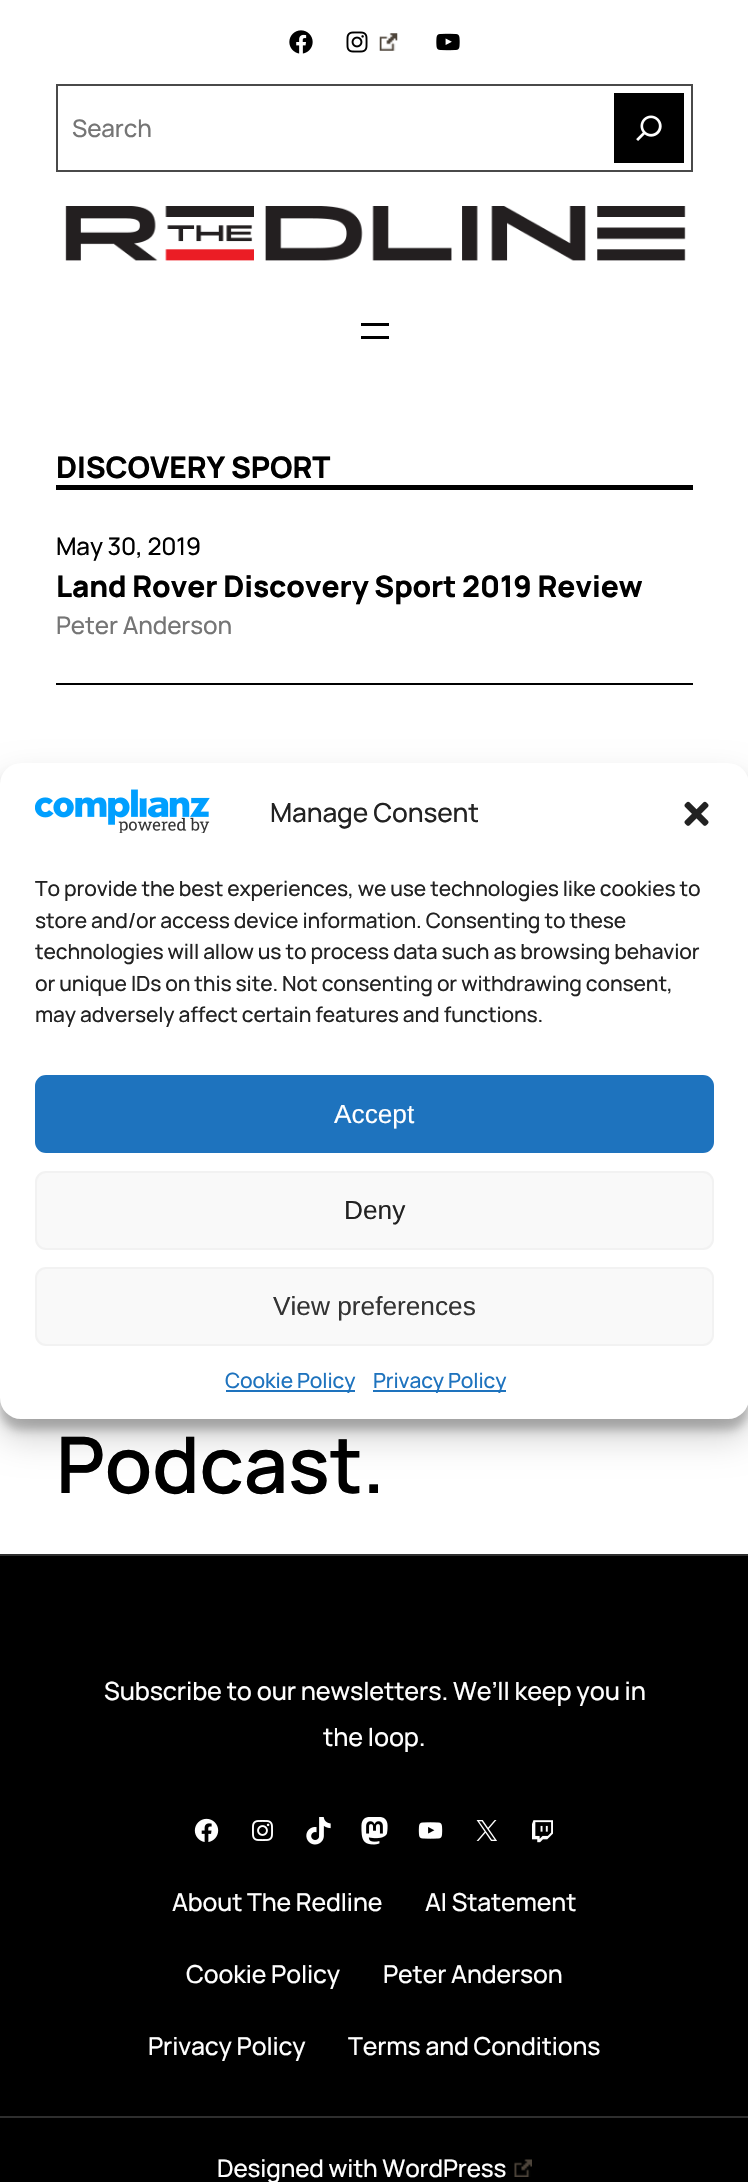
void draw(SkCanvas* canvas) {
	SkPaint paint;
	paint.setAntiAlias(true);
	auto spacedText = [&](const char* s, float x, float y, const SkFont& font, const SkPaint& ink, float letter, float word) {
		std::vector<SkGlyphID> glyphs(font.countText(s, strlen(s), SkTextEncoding::kUTF8));
		std::vector<float> xs(glyphs.size());
		font.textToGlyphs(s, strlen(s), SkTextEncoding::kUTF8, glyphs);
		font.getXPos(glyphs, xs, x);
		float extra = 0;
		for (size_t i = 0; i < glyphs.size(); i++) {
			xs[i] += extra;
			extra += letter + word * (glyphs[i] == font.unicharToGlyph(' '));
		}
		canvas->drawTextBlob(SkTextBlob::MakeFromPosHGlyphs(glyphs, xs, y, font), 0, 0, ink);
	};
	canvas->clear(0xffffffff);
	canvas->drawImageRect(SkImages::DeferredFromEncodedData(SkData::MakeFromFileName("img1.png")), SkRect::MakeXYWH(289, 30, 24, 24), SkSamplingOptions());
	canvas->drawImageRect(SkImages::DeferredFromEncodedData(SkData::MakeFromFileName("img2.png")), SkRect::MakeXYWH(346, 31, 22, 22), SkSamplingOptions());
	canvas->drawImageRect(SkImages::DeferredFromEncodedData(SkData::MakeFromFileName("img3.png")), SkRect::MakeXYWH(379, 33, 19, 18), SkSamplingOptions());
	canvas->drawImageRect(SkImages::DeferredFromEncodedData(SkData::MakeFromFileName("img4.png")), SkRect::MakeXYWH(436, 33, 24, 18), SkSamplingOptions());
	paint.setStroke(true);
	paint.setStrokeWidth(2);
	paint.setColor(0xff4a4a4a);
	canvas->drawRect(SkRect::MakeXYWH(57, 85, 635, 86), paint);
	SkFont f1(fontMgr->matchFamilyStyle("Manrope", SkFontStyle(500, SkFontStyle::kNormal_Width, SkFontStyle::kUpright_Slant)), 24.25);
	f1.setSubpixel(true);
	paint.setStroke(false);
	paint.setColor(0xff757575);
	spacedText("Search", 72, 137, f1, paint, -0.13, 0);
	paint.setColor(0xff000000);
	canvas->drawRect(SkRect::MakeXYWH(614, 93, 70, 70), paint);
	canvas->drawImageRect(SkImages::DeferredFromEncodedData(SkData::MakeFromFileName("img5.png")), SkRect::MakeXYWH(636, 115, 26, 26), SkSamplingOptions());
	canvas->drawImageRect(SkImages::DeferredFromEncodedData(SkData::MakeFromFileName("img6.png")), SkRect::MakeXYWH(65, 206, 621, 55), SkSamplingOptions());
	canvas->drawRect(SkRect::MakeXYWH(361, 323, 28, 3), paint);
	canvas->drawRect(SkRect::MakeXYWH(361, 336, 28, 3), paint);
	canvas->drawRect(SkRect::MakeXYWH(56, 485, 637, 5), paint);
	SkFont f2(fontMgr->matchFamilyStyle("Manrope", SkFontStyle(800, SkFontStyle::kNormal_Width, SkFontStyle::kUpright_Slant)), 29.75);
	f2.setSubpixel(true);
	spacedText("DISCOVERY SPORT", 56, 478, f2, paint, -0.13, 0);
	spacedText("May 30, 2019", 56, 555, f1, paint, -0.13, 0);
	spacedText("Land Rover Discovery Sport 2019 Review", 56, 597, f2, paint, -0.13, 0);
	paint.setColor(0xff757575);
	spacedText("Peter Anderson", 56, 634, f1, paint, -0.13, 0);
	paint.setColor(0xff000000);
	canvas->drawRect(SkRect::MakeXYWH(56, 683, 637, 2), paint);
	SkFont f3(fontMgr->matchFamilyStyle("Manrope", SkFontStyle(600, SkFontStyle::kNormal_Width, SkFontStyle::kUpright_Slant)), 78);
	f3.setSubpixel(true);
	spacedText("Podcast.", 56, 1493, f3, paint, -0.13, 0);
	canvas->drawRect(SkRect::MakeXYWH(0, 1556, 748, 626), paint);
	paint.setColor(0xff2e2e2e);
	canvas->drawRect(SkRect::MakeXYWH(0, 1554, 748, 2), paint);
	SkFont f4(fontMgr->matchFamilyStyle("Manrope", SkFontStyle(500, SkFontStyle::kNormal_Width, SkFontStyle::kUpright_Slant)), 25.1);
	f4.setSubpixel(true);
	paint.setColor(0xffffffff);
	spacedText("Subscribe to our newsletters. We’ll keep you in", 104, 1700, f4, paint, -0.13, 0);
	spacedText("the loop.", 323, 1746, f4, paint, -0.13, 0);
	canvas->drawImageRect(SkImages::DeferredFromEncodedData(SkData::MakeFromFileName("img7.png")), SkRect::MakeXYWH(194, 1818, 25, 24), SkSamplingOptions());
	canvas->drawImageRect(SkImages::DeferredFromEncodedData(SkData::MakeFromFileName("img8.png")), SkRect::MakeXYWH(252, 1820, 21, 21), SkSamplingOptions());
	canvas->drawImageRect(SkImages::DeferredFromEncodedData(SkData::MakeFromFileName("img9.png")), SkRect::MakeXYWH(306, 1817, 25, 28), SkSamplingOptions());
	canvas->drawImageRect(SkImages::DeferredFromEncodedData(SkData::MakeFromFileName("img10.png")), SkRect::MakeXYWH(361, 1817, 27, 28), SkSamplingOptions());
	canvas->drawImageRect(SkImages::DeferredFromEncodedData(SkData::MakeFromFileName("img11.png")), SkRect::MakeXYWH(418, 1822, 25, 17), SkSamplingOptions());
	canvas->drawImageRect(SkImages::DeferredFromEncodedData(SkData::MakeFromFileName("img12.png")), SkRect::MakeXYWH(476, 1820, 21, 21), SkSamplingOptions());
	canvas->drawImageRect(SkImages::DeferredFromEncodedData(SkData::MakeFromFileName("img13.png")), SkRect::MakeXYWH(532, 1820, 21, 23), SkSamplingOptions());
	SkFont f5(fontMgr->matchFamilyStyle("Manrope", SkFontStyle(500, SkFontStyle::kNormal_Width, SkFontStyle::kUpright_Slant)), 24.75);
	f5.setSubpixel(true);
	spacedText("About The Redline", 172, 1911, f5, paint, -0.13, 0);
	spacedText("AI Statement", 425, 1911, f5, paint, -0.13, 0);
	spacedText("Cookie Policy", 186, 1983, f5, paint, -0.13, 0);
	spacedText("Peter Anderson", 383, 1983, f5, paint, -0.13, 0);
	spacedText("Privacy Policy", 148, 2055, f5, paint, -0.13, 0);
	spacedText("Terms and Conditions", 348, 2055, f5, paint, -0.13, 0);
	paint.setColor(0xff2e2e2e);
	canvas->drawRect(SkRect::MakeXYWH(0, 2116, 748, 2), paint);
	paint.setColor(0xffffffff);
	spacedText("Designed with WordPress", 217, 2177, f1, paint, -0.13, 0);
	canvas->drawImageRect(SkImages::DeferredFromEncodedData(SkData::MakeFromFileName("img14.png")), SkRect::MakeXYWH(514, 2159, 18, 18), SkSamplingOptions());
	paint.setColor(0x3b000000);
	paint.setMaskFilter(SkMaskFilter::MakeBlur(kNormal_SkBlurStyle, 5));
	canvas->drawRoundRect(SkRect::MakeXYWH(0, 774, 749, 656), 21, 21, paint);
	paint.setMaskFilter(nullptr);
	paint.setColor(0x30000000);
	paint.setMaskFilter(SkMaskFilter::MakeBlur(kNormal_SkBlurStyle, 17.5));
	canvas->drawRoundRect(SkRect::MakeXYWH(0, 781, 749, 656), 21, 21, paint);
	paint.setMaskFilter(nullptr);
	paint.setColor(0xffffffff);
	canvas->drawRoundRect(SkRect::MakeXYWH(0, 763, 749, 656), 21, 21, paint);
	canvas->drawImageRect(SkImages::DeferredFromEncodedData(SkData::MakeFromFileName("img15.png")), SkRect::MakeXYWH(35, 789, 175, 44), SkSamplingOptions());
	SkFont f6(fontMgr->matchFamilyStyle("Manrope", SkFontStyle(500, SkFontStyle::kNormal_Width, SkFontStyle::kUpright_Slant)), 26.25);
	f6.setSubpixel(true);
	paint.setColor(0xff222222);
	spacedText("Manage Consent", 270, 822, f6, paint, -0.13, 0);
	canvas->drawImageRect(SkImages::DeferredFromEncodedData(SkData::MakeFromFileName("img16.png")), SkRect::MakeXYWH(684, 801, 25, 25), SkSamplingOptions());
	SkFont f7(fontMgr->matchFamilyStyle("Manrope", SkFontStyle(500, SkFontStyle::kNormal_Width, SkFontStyle::kUpright_Slant)), 21);
	f7.setSubpixel(true);
	spacedText("To provide the best experiences, we use technologies like cookies to", 35, 896, f7, paint, -0.13, 0);
	spacedText("store and/or access device information. Consenting to these", 35, 928, f7, paint, -0.13, 0);
	spacedText("technologies will allow us to process data such as browsing behavior", 35, 959, f7, paint, -0.13, 0);
	spacedText("or unique IDs on this site. Not consenting or withdrawing consent,", 35, 991, f7, paint, -0.13, 0);
	spacedText("may adversely affect certain features and functions.", 35, 1022, f7, paint, -0.13, 0);
	paint.setColor(0xff1e73be);
	canvas->drawRoundRect(SkRect::MakeXYWH(36, 1076, 677, 76), 10, 10, paint);
	paint.setStroke(true);
	canvas->drawRoundRect(SkRect::MakeXYWH(36, 1076, 677, 76), 10, 10, paint);
	SkFont f8(fontMgr->matchFamilyStyle("Liberation Sans", SkFontStyle::Normal()), 26.25);
	f8.setSubpixel(true);
	paint.setStroke(false);
	paint.setColor(0xffffffff);
	canvas->drawString("Accept", 334, 1123, f8, paint);
	paint.setColor(0xfff9f9f9);
	canvas->drawRoundRect(SkRect::MakeXYWH(36, 1172, 677, 77), 10, 10, paint);
	paint.setStroke(true);
	paint.setColor(0xfff2f2f2);
	canvas->drawRoundRect(SkRect::MakeXYWH(36, 1172, 677, 77), 10, 10, paint);
	paint.setStroke(false);
	paint.setColor(0xff222222);
	canvas->drawString("Deny", 344, 1219, f8, paint);
	paint.setColor(0xfff9f9f9);
	canvas->drawRoundRect(SkRect::MakeXYWH(36, 1268, 677, 77), 10, 10, paint);
	paint.setStroke(true);
	paint.setColor(0xfff2f2f2);
	canvas->drawRoundRect(SkRect::MakeXYWH(36, 1268, 677, 77), 10, 10, paint);
	paint.setStroke(false);
	paint.setColor(0xff333333);
	canvas->drawString("View preferences", 273, 1315, f8, paint);
	paint.setColor(0xff1e73be);
	canvas->drawRect(SkRect::MakeXYWH(226, 1390, 129, 2), paint);
	spacedText("Cookie Policy", 225, 1388, f7, paint, -0.13, 0);
	canvas->drawRect(SkRect::MakeXYWH(373, 1390, 133, 2), paint);
	spacedText("Privacy Policy", 373, 1388, f7, paint, -0.13, 0);
}
